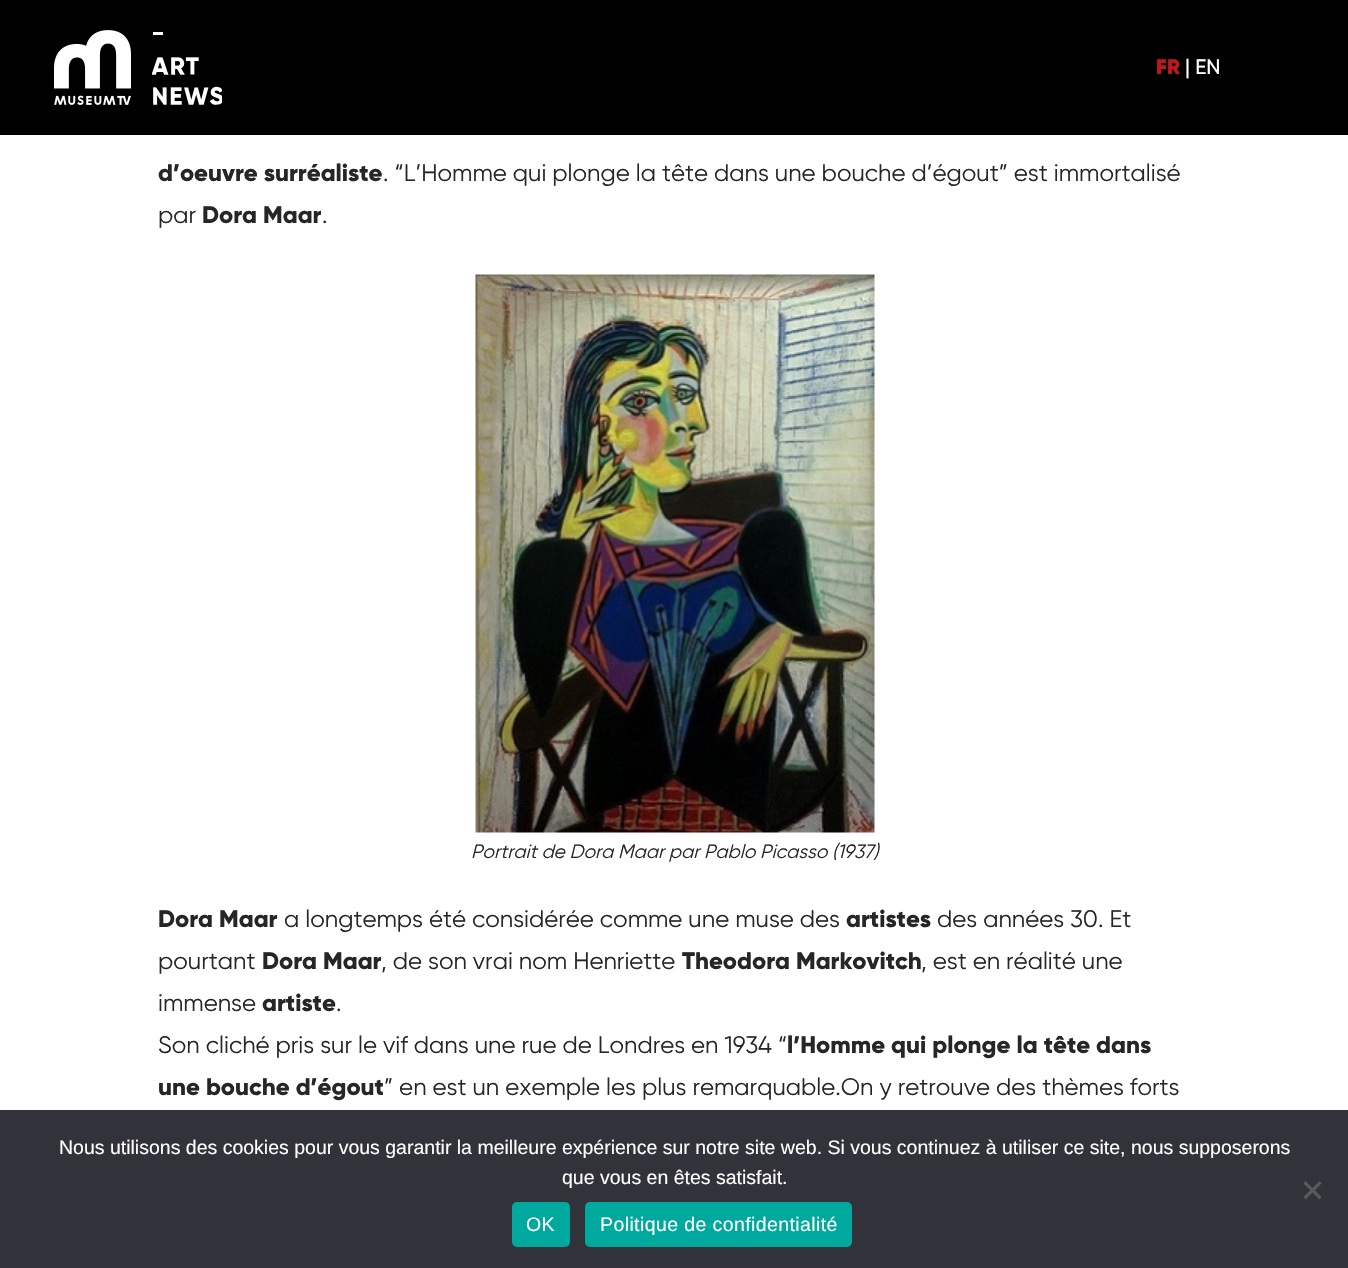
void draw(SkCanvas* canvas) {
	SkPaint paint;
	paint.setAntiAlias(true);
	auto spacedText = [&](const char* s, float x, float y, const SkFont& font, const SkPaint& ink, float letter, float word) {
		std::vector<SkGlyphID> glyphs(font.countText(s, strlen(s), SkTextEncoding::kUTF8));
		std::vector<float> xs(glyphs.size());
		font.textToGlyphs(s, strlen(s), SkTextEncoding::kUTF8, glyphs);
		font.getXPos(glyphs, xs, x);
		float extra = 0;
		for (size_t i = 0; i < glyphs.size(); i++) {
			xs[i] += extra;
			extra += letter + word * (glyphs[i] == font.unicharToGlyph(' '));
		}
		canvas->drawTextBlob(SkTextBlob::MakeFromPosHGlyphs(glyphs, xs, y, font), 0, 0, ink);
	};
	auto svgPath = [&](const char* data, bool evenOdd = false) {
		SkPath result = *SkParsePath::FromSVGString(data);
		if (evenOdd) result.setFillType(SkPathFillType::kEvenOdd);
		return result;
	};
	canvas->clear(0xffffffff);
	paint.setColor(0xff000000);
	canvas->drawRect(SkRect::MakeXYWH(0, 0, 1348, 135), paint);
	canvas->drawImageRect(SkImages::DeferredFromEncodedData(SkData::MakeFromFileName("img1.png")), SkRect::MakeXYWH(54, 30, 77, 75), SkSamplingOptions());
	canvas->drawImageRect(SkImages::DeferredFromEncodedData(SkData::MakeFromFileName("img2.png")), SkRect::MakeXYWH(152, 32, 70, 73), SkSamplingOptions());
	SkFont f1(fontMgr->matchFamilyStyle("Gilroy", SkFontStyle(900, SkFontStyle::kNormal_Width, SkFontStyle::kUpright_Slant)), 21);
	f1.setSubpixel(true);
	paint.setColor(0xffbe181f);
	canvas->drawString("FR", 1156, 74, f1, paint);
	SkFont f2(fontMgr->matchFamilyStyle("Gilroy", SkFontStyle(500, SkFontStyle::kNormal_Width, SkFontStyle::kUpright_Slant)), 21);
	f2.setSubpixel(true);
	paint.setColor(0xffffffff);
	canvas->drawString("| EN", 1185, 74, f2, paint);
	SkFont f3(fontMgr->matchFamilyStyle("Gilroy", SkFontStyle(800, SkFontStyle::kNormal_Width, SkFontStyle::kUpright_Slant)), 24);
	f3.setSubpixel(true);
	paint.setColor(0xff262626);
	canvas->drawString("d’oeuvre surréaliste", 158, 181, f3, paint);
	SkFont f4(fontMgr->matchFamilyStyle("Gilroy", SkFontStyle::Normal()), 24);
	f4.setSubpixel(true);
	canvas->drawString(". “L’Homme qui plonge la tête dans une bouche d’égout” est immortalisé", 383, 181, f4, paint);
	canvas->drawString("par", 158, 223, f4, paint);
	canvas->drawString("Dora Maar", 202, 223, f3, paint);
	canvas->drawString(".", 322, 223, f4, paint);
	canvas->drawImageRect(SkImages::DeferredFromEncodedData(SkData::MakeFromFileName("img3.png")), SkRect::MakeXYWH(475, 274, 400, 559), SkSamplingOptions());
	SkFont f5(fontMgr->matchFamilyStyle("Gilroy", SkFontStyle::Italic()), 19.2);
	f5.setSubpixel(true);
	canvas->drawString("Portrait de Dora Maar par Pablo Picasso (1937)", 471, 858, f5, paint);
	canvas->drawString("Dora Maar", 158, 927, f3, paint);
	canvas->drawString("a longtemps été considérée comme une muse des", 284, 927, f4, paint);
	canvas->drawString("artistes", 846, 927, f3, paint);
	canvas->drawString("des années 30. Et", 937, 927, f4, paint);
	canvas->drawString("pourtant", 158, 969, f4, paint);
	canvas->drawString("Dora Maar", 262, 969, f3, paint);
	canvas->drawString(", de son vrai nom Henriette", 381, 969, f4, paint);
	canvas->drawString("Theodora Markovitch", 682, 969, f3, paint);
	canvas->drawString(", est en réalité une", 921, 969, f4, paint);
	canvas->drawString("immense", 158, 1011, f4, paint);
	canvas->drawString("artiste", 262, 1011, f3, paint);
	canvas->drawString(".", 336, 1011, f4, paint);
	canvas->drawString("Son cliché pris sur le vif dans une rue de Londres en 1934 “", 158, 1053, f4, paint);
	canvas->drawString("l’Homme qui plonge la tête dans", 787, 1053, f3, paint);
	canvas->drawString("une bouche d’égout", 158, 1095, f3, paint);
	canvas->drawString("” en est un exemple les plus remarquable.On y retrouve des thèmes forts", 384, 1095, f4, paint);
	paint.setColor(0xff32323a);
	canvas->drawRect(SkRect::MakeXYWH(0, 1110, 1348, 158), paint);
	SkFont f6(fontMgr->matchFamilyStyle("Liberation Sans", SkFontStyle::Normal()), 19.5);
	f6.setSubpixel(true);
	paint.setColor(0xffffffff);
	canvas->drawString("Nous utilisons des cookies pour vous garantir la meilleure expérience sur notre site web. Si vous continuez à utiliser ce site, nous supposerons", 59, 1154, f6, paint);
	canvas->drawString("que vous en êtes satisfait.", 562, 1184, f6, paint);
	paint.setColor(0xff59595d);
	canvas->drawPath(svgPath("M1319.5 1181L1321.5 1183.5L1305.5 1199.5L1303.5 1197Z"), paint);
	canvas->drawPath(svgPath("M1303.5 1183.5L1305.5 1181L1321.5 1197L1319.5 1199.5Z"), paint);
	paint.setColor(0xff00a99d);
	canvas->drawRoundRect(SkRect::MakeXYWH(512, 1202, 58, 45), 5, 5, paint);
	paint.setColor(0xffffffff);
	spacedText("OK", 526, 1231, f6, paint, 0.4, 0);
	paint.setColor(0xff00a99d);
	canvas->drawRoundRect(SkRect::MakeXYWH(585, 1202, 267, 45), 5, 5, paint);
	paint.setColor(0xffffffff);
	spacedText("Politique de confidentialité", 600, 1231, f6, paint, 0.4, 0);
}
